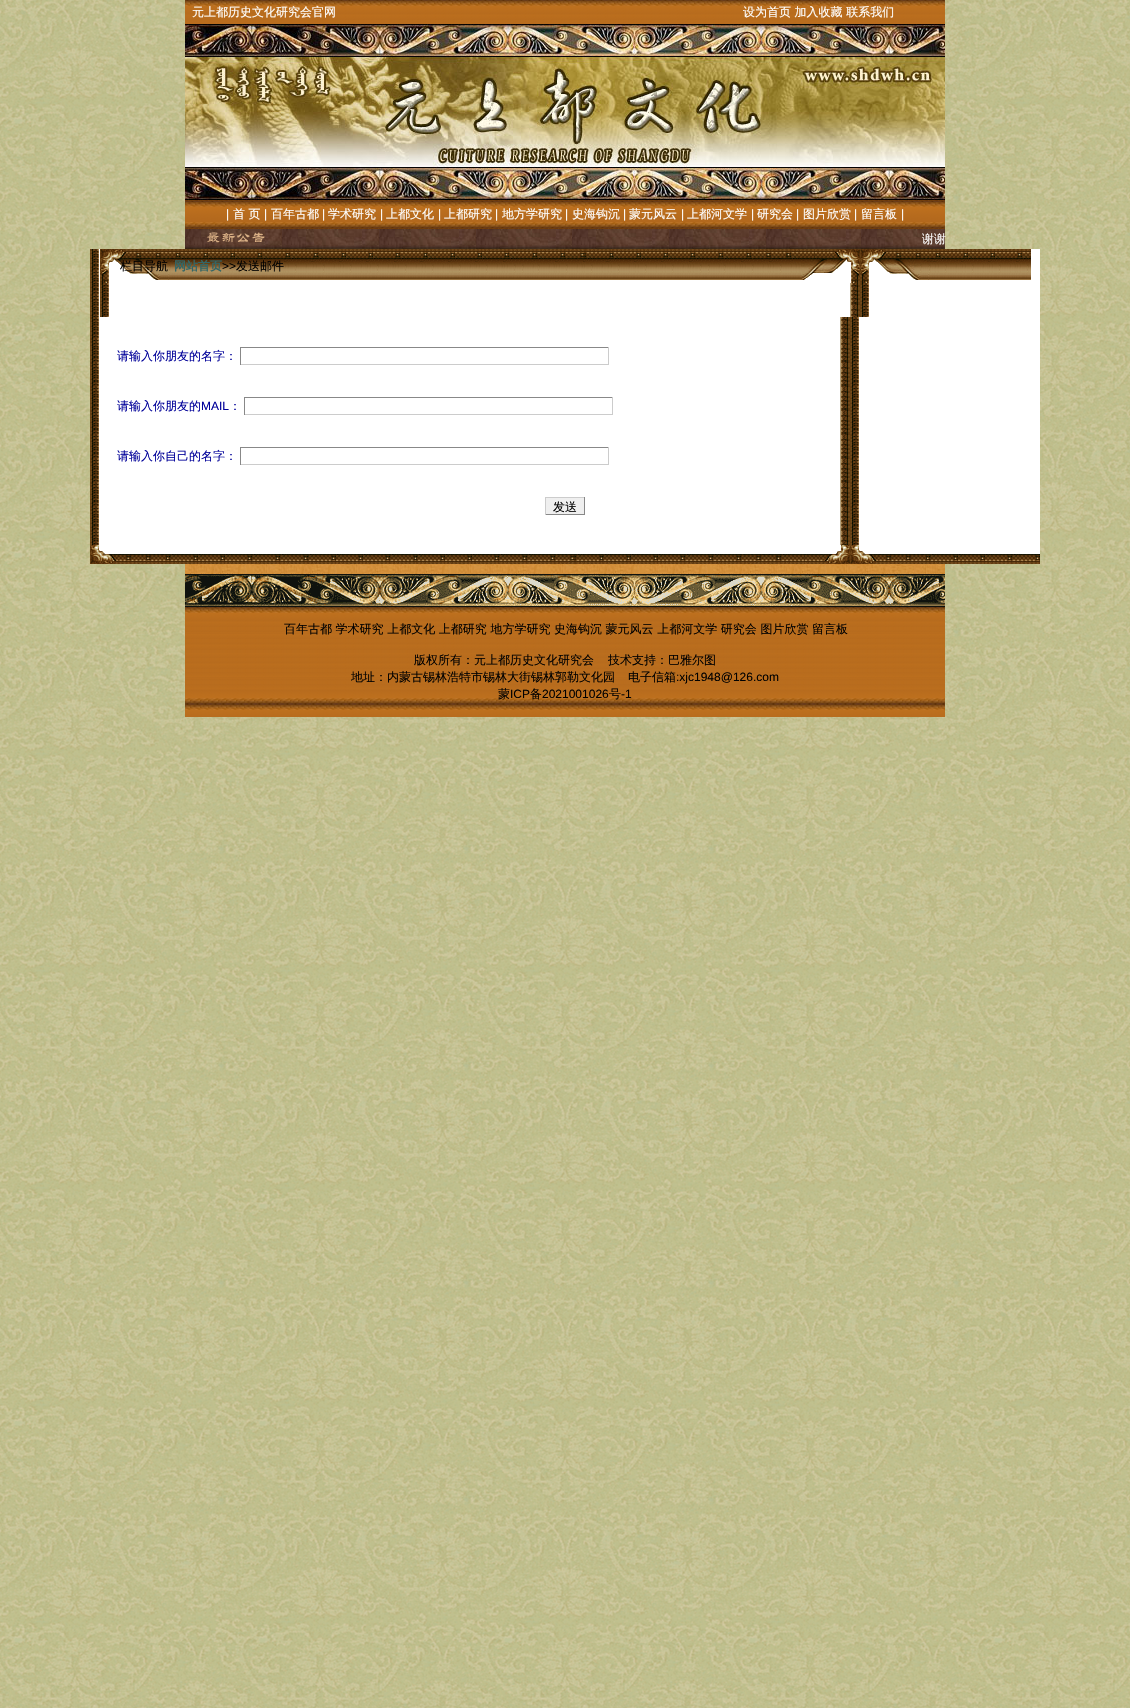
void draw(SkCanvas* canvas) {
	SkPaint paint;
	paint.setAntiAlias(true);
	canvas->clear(0xffffffff);
	canvas->drawImageRect(SkImages::DeferredFromEncodedData(SkData::MakeFromFileName("img1.png")), SkRect::MakeXYWH(0, 0, 1130, 1708), SkSamplingOptions());
	canvas->drawImageRect(SkImages::DeferredFromEncodedData(SkData::MakeFromFileName("img2.png")), SkRect::MakeXYWH(185, 0, 558, 24), SkSamplingOptions());
	SkFont f1(fontMgr->matchFamilyStyle("WenQuanYi Zen Hei", SkFontStyle(500, SkFontStyle::kNormal_Width, SkFontStyle::kUpright_Slant)), 12);
	f1.setSubpixel(true);
	paint.setColor(0xffffffff);
	canvas->drawString("元上都历史文化研究会官网", 192, 16, f1, paint);
	canvas->drawImageRect(SkImages::DeferredFromEncodedData(SkData::MakeFromFileName("img3.png")), SkRect::MakeXYWH(743, 0, 202, 24), SkSamplingOptions());
	canvas->drawString("设为首页 加入收藏 联系我们", 743, 16, f1, paint);
	canvas->drawImageRect(SkImages::DeferredFromEncodedData(SkData::MakeFromFileName("img4.png")), SkRect::MakeXYWH(185, 24, 760, 176), SkSamplingOptions());
	canvas->drawImageRect(SkImages::DeferredFromEncodedData(SkData::MakeFromFileName("img5.png")), SkRect::MakeXYWH(185, 200, 760, 29), SkSamplingOptions());
	SkFont f2(fontMgr->matchFamilyStyle("Liberation Sans", SkFontStyle::Normal()), 12);
	f2.setSubpixel(true);
	canvas->drawString("|", 226, 218, f2, paint);
	canvas->drawString("首 页", 233, 218, f1, paint);
	canvas->drawString("|", 264, 218, f2, paint);
	canvas->drawString("百年古都", 271, 218, f1, paint);
	canvas->drawString("|", 322, 218, f2, paint);
	canvas->drawString("学术研究", 328, 218, f1, paint);
	canvas->drawString("|", 380, 218, f2, paint);
	canvas->drawString("上都文化", 386, 218, f1, paint);
	canvas->drawString("|", 438, 218, f2, paint);
	canvas->drawString("上都研究", 444, 218, f1, paint);
	canvas->drawString("|", 495, 218, f2, paint);
	canvas->drawString("地方学研究", 502, 218, f1, paint);
	canvas->drawString("|", 565, 218, f2, paint);
	canvas->drawString("史海钩沉", 572, 218, f1, paint);
	canvas->drawString("|", 623, 218, f2, paint);
	canvas->drawString("蒙元风云", 629, 218, f1, paint);
	canvas->drawString("|", 681, 218, f2, paint);
	canvas->drawString("上都河文学", 687, 218, f1, paint);
	canvas->drawString("|", 751, 218, f2, paint);
	canvas->drawString("研究会", 757, 218, f1, paint);
	canvas->drawString("|", 796, 218, f2, paint);
	canvas->drawString("图片欣赏", 803, 218, f1, paint);
	canvas->drawString("|", 854, 218, f2, paint);
	canvas->drawString("留言板", 861, 218, f1, paint);
	canvas->drawString("|", 901, 218, f2, paint);
	canvas->drawImageRect(SkImages::DeferredFromEncodedData(SkData::MakeFromFileName("img6.png")), SkRect::MakeXYWH(185, 229, 760, 20), SkSamplingOptions());
	canvas->drawString("谢谢", 922, 243, f1, paint);
	canvas->drawImageRect(SkImages::DeferredFromEncodedData(SkData::MakeFromFileName("img7.png")), SkRect::MakeXYWH(90, 249, 950, 296), SkSamplingOptions());
	canvas->drawImageRect(SkImages::DeferredFromEncodedData(SkData::MakeFromFileName("img8.png")), SkRect::MakeXYWH(100, 249, 931, 34), SkSamplingOptions());
	paint.setColor(0xff000000);
	canvas->drawString("栏目导航", 120, 270, f1, paint);
	SkFont f3(fontMgr->matchFamilyStyle("WenQuanYi Zen Hei", SkFontStyle::Bold()), 12);
	f3.setSubpixel(true);
	paint.setColor(0xff336666);
	canvas->drawString("网站首页", 174, 270, f3, paint);
	paint.setColor(0xff000000);
	canvas->drawString(">>", 222, 270, f2, paint);
	canvas->drawString("发送邮件", 236, 270, f1, paint);
	canvas->drawImageRect(SkImages::DeferredFromEncodedData(SkData::MakeFromFileName("img9.png")), SkRect::MakeXYWH(100, 283, 769, 34), SkSamplingOptions());
	canvas->drawImageRect(SkImages::DeferredFromEncodedData(SkData::MakeFromFileName("img10.png")), SkRect::MakeXYWH(90, 317, 769, 228), SkSamplingOptions());
	paint.setColor(0xff000099);
	canvas->drawString("请输入你朋友的名字：", 117, 360, f1, paint);
	paint.setColor(0xff888888);
	canvas->drawRect(SkRect::MakeXYWH(240, 347, 369, 1), paint);
	paint.setColor(0xffcccccc);
	canvas->drawRect(SkRect::MakeXYWH(608, 347, 1, 18), paint);
	canvas->drawRect(SkRect::MakeXYWH(240, 364, 369, 1), paint);
	paint.setColor(0xff888888);
	canvas->drawRect(SkRect::MakeXYWH(240, 347, 1, 18), paint);
	paint.setColor(0xff000099);
	canvas->drawString("请输入你朋友的", 117, 410, f1, paint);
	canvas->drawString("MAIL", 201, 410, f2, paint);
	canvas->drawString("：", 229, 410, f1, paint);
	paint.setColor(0xff888888);
	canvas->drawRect(SkRect::MakeXYWH(244, 397, 369, 1), paint);
	paint.setColor(0xffcccccc);
	canvas->drawRect(SkRect::MakeXYWH(612, 397, 1, 18), paint);
	canvas->drawRect(SkRect::MakeXYWH(244, 414, 369, 1), paint);
	paint.setColor(0xff888888);
	canvas->drawRect(SkRect::MakeXYWH(244, 397, 1, 18), paint);
	paint.setColor(0xff000099);
	canvas->drawString("请输入你自己的名字：", 117, 460, f1, paint);
	paint.setColor(0xff888888);
	canvas->drawRect(SkRect::MakeXYWH(240, 447, 369, 1), paint);
	paint.setColor(0xffcccccc);
	canvas->drawRect(SkRect::MakeXYWH(608, 447, 1, 18), paint);
	canvas->drawRect(SkRect::MakeXYWH(240, 464, 369, 1), paint);
	paint.setColor(0xff888888);
	canvas->drawRect(SkRect::MakeXYWH(240, 447, 1, 18), paint);
	paint.setColor(0xffefefef);
	canvas->drawRect(SkRect::MakeXYWH(546, 498, 38, 16), paint);
	paint.setColor(0xffcccccc);
	canvas->drawRect(SkRect::MakeXYWH(545, 497, 40, 1), paint);
	paint.setColor(0xff888888);
	canvas->drawRect(SkRect::MakeXYWH(584, 497, 1, 18), paint);
	canvas->drawRect(SkRect::MakeXYWH(545, 514, 40, 1), paint);
	paint.setColor(0xffcccccc);
	canvas->drawRect(SkRect::MakeXYWH(545, 497, 1, 18), paint);
	paint.setColor(0xff000000);
	canvas->drawString("发送", 553, 511, f1, paint);
	canvas->drawImageRect(SkImages::DeferredFromEncodedData(SkData::MakeFromFileName("img11.png")), SkRect::MakeXYWH(90, 545, 950, 19), SkSamplingOptions());
	canvas->drawImageRect(SkImages::DeferredFromEncodedData(SkData::MakeFromFileName("img12.png")), SkRect::MakeXYWH(185, 564, 760, 43), SkSamplingOptions());
	canvas->drawImageRect(SkImages::DeferredFromEncodedData(SkData::MakeFromFileName("img13.png")), SkRect::MakeXYWH(185, 607, 760, 110), SkSamplingOptions());
	canvas->drawString("百年古都 学术研究 上都文化 上都研究 地方学研究 史海钩沉 蒙元风云 上都河文学 研究会 图片欣赏 留言板", 284, 633, f1, paint);
	canvas->drawString("版权所有：元上都历史文化研究会", 414, 664, f1, paint);
	canvas->drawString("技术支持：巴雅尔图", 608, 664, f1, paint);
	canvas->drawString("地址：内蒙古锡林浩特市锡林大街锡林郭勒文化园", 351, 681, f1, paint);
	canvas->drawString("电子信箱", 628, 681, f1, paint);
	canvas->drawString(":xjc1948@126.com", 676, 681, f2, paint);
	canvas->drawString("蒙", 498, 698, f1, paint);
	canvas->drawString("ICP", 510, 698, f2, paint);
	canvas->drawString("备", 530, 698, f1, paint);
	canvas->drawString("2021001026", 542, 698, f2, paint);
	canvas->drawString("号", 609, 698, f1, paint);
	canvas->drawString("-1", 621, 698, f2, paint);
}
